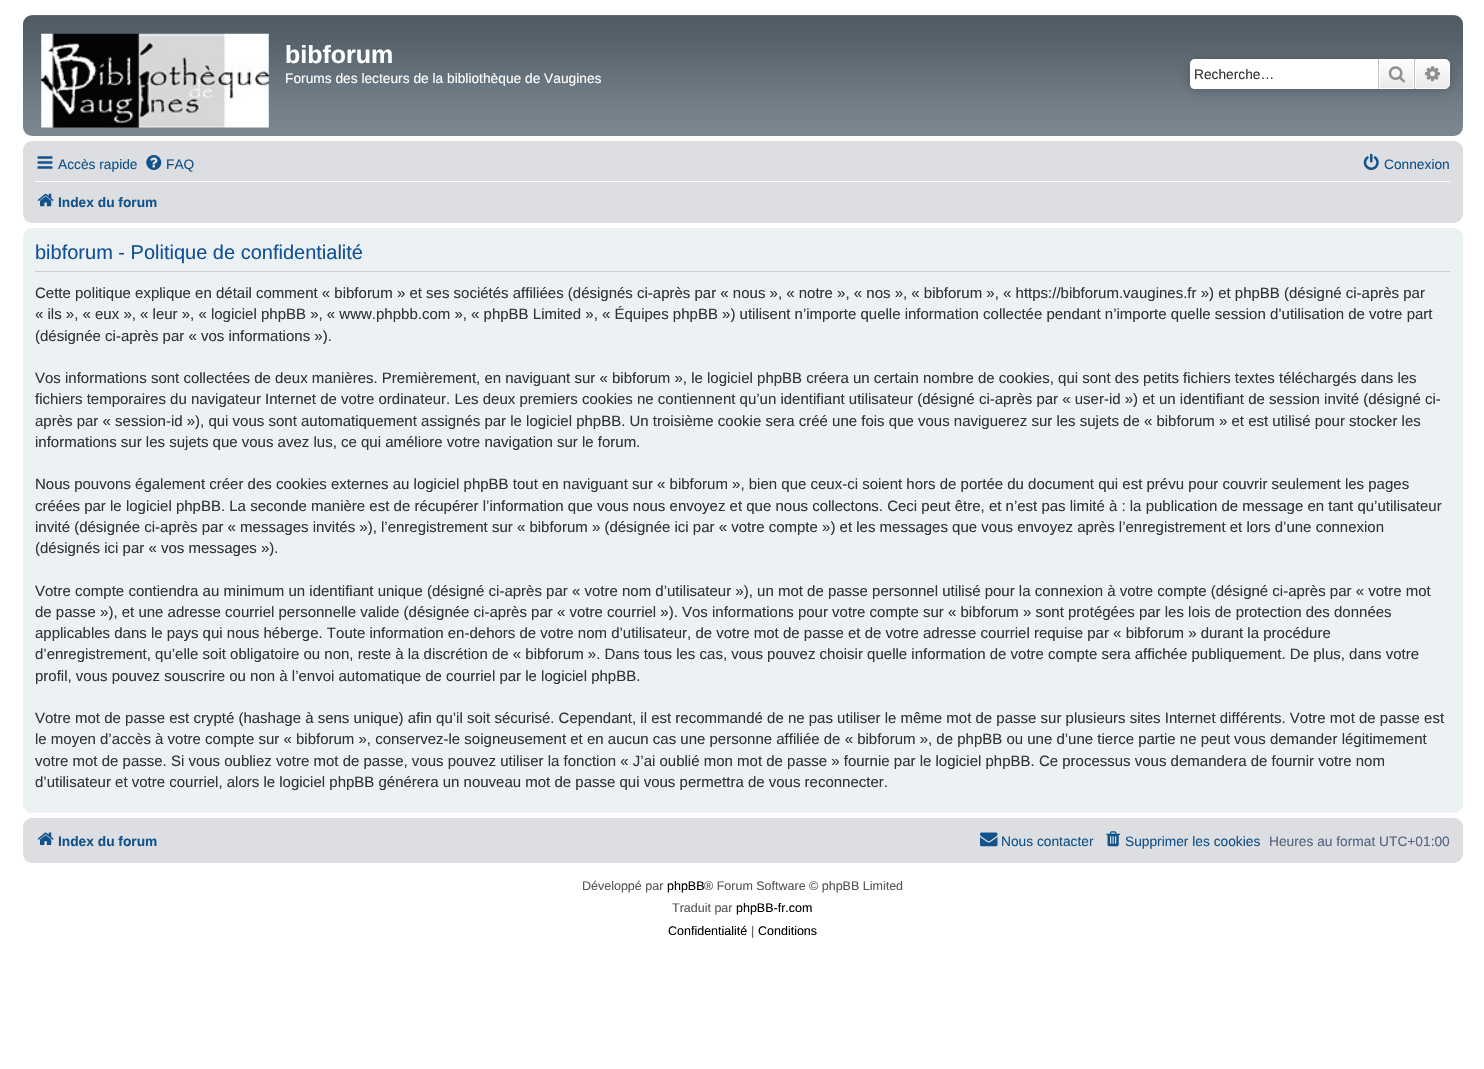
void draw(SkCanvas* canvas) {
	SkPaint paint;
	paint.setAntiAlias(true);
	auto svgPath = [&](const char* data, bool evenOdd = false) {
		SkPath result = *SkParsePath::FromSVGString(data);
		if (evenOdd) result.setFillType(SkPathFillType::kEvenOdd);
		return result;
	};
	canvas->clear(0xffffffff);
	{
		const SkColor colors[] = {0xff6e777f, 0xff505c65, 0xff56626b, 0xff737f88, 0xff7c8891};
		const float stops[] = {0, 0.01, 0.2, 0.75, 1};
		const SkPoint ends[] = {{743, 15}, {743, 136}};
		paint.setShader(SkGradientShader::MakeLinear(ends, colors, stops, 5, SkTileMode::kClamp));
		paint.setAlpha(255);
	}
	canvas->drawRoundRect(SkRect::MakeXYWH(23, 15, 1440, 121), 9, 9, paint);
	canvas->drawImageRect(SkImages::DeferredFromEncodedData(SkData::MakeFromFileName("img1.png")), SkRect::MakeXYWH(41, 33, 228, 95), SkSamplingOptions());
	SkFont f1(fontMgr->matchFamilyStyle("Liberation Sans", SkFontStyle::Bold()), 25);
	f1.setSubpixel(true);
	paint.setShader(nullptr);
	paint.setColor(0xffffffff);
	canvas->drawString("bibforum", 285, 63, f1, paint);
	SkFont f2(fontMgr->matchFamilyStyle("Liberation Sans", SkFontStyle::Normal()), 13.75);
	f2.setSubpixel(true);
	canvas->drawString("Forums des lecteurs de la bibliothèque de Vaugines", 285, 83, f2, paint);
	paint.setColor(0xff505c65);
	paint.setMaskFilter(SkMaskFilter::MakeBlur(kNormal_SkBlurStyle, 6));
	canvas->drawRoundRect(SkRect::MakeXYWH(1190, 59, 260, 30), 5, 5, paint);
	paint.setMaskFilter(nullptr);
	paint.setColor(0xffffffff);
	canvas->drawPath(svgPath("M1195 59H1378V89H1195C1192 89 1190 87 1190 84V64C1190 61 1192 59 1195 59Z"), paint);
	paint.setColor(0xff333333);
	canvas->drawString("Recherche…", 1194, 79, f2, paint);
	{
		const SkColor colors[] = {0xffffffff, 0xffe9e9e9};
		const float stops[] = {0, 1};
		const SkPoint ends[] = {{1396, 59}, {1396, 89}};
		paint.setShader(SkGradientShader::MakeLinear(ends, colors, stops, 2, SkTileMode::kClamp));
		paint.setAlpha(255);
	}
	canvas->drawRect(SkRect::MakeXYWH(1380, 60, 33, 28), paint);
	paint.setStroke(true);
	paint.setStrokeWidth(1);
	paint.setShader(nullptr);
	paint.setColor(0xffffffff);
	canvas->drawRect(SkRect::MakeXYWH(1379.5, 59.5, 34, 29), paint);
	paint.setStroke(false);
	paint.setColor(0xffc7c3bf);
	canvas->drawRect(SkRect::MakeXYWH(1414, 59, 1, 30), paint);
	canvas->drawRect(SkRect::MakeXYWH(1378, 59, 1, 30), paint);
	canvas->drawImageRect(SkImages::DeferredFromEncodedData(SkData::MakeFromFileName("img2.png")), SkRect::MakeXYWH(1388, 66, 17, 17), SkSamplingOptions());
	{
		const SkColor colors[] = {0xffffffff, 0xffe9e9e9};
		const float stops[] = {0, 1};
		const SkPoint ends[] = {{1433, 59}, {1433, 89}};
		paint.setShader(SkGradientShader::MakeLinear(ends, colors, stops, 2, SkTileMode::kClamp));
		paint.setAlpha(255);
	}
	canvas->drawPath(svgPath("M1415.5 59.5H1445C1447.5 59.5 1449.5 61.5 1449.5 64V84C1449.5 86.5 1447.5 88.5 1445 88.5H1415.5Z"), paint);
	paint.setStroke(true);
	paint.setShader(nullptr);
	paint.setColor(0xffffffff);
	canvas->drawPath(svgPath("M1415.5 59.5H1445C1447.5 59.5 1449.5 61.5 1449.5 64V84C1449.5 86.5 1447.5 88.5 1445 88.5H1415.5Z"), paint);
	canvas->drawImageRect(SkImages::DeferredFromEncodedData(SkData::MakeFromFileName("img3.png")), SkRect::MakeXYWH(1425, 66, 15, 16), SkSamplingOptions());
	paint.setStroke(false);
	paint.setColor(0xffdcdee2);
	canvas->drawRoundRect(SkRect::MakeXYWH(23, 141, 1440, 82), 9, 9, paint);
	canvas->drawImageRect(SkImages::DeferredFromEncodedData(SkData::MakeFromFileName("img4.png")), SkRect::MakeXYWH(37, 156, 16, 13), SkSamplingOptions());
	paint.setColor(0xff105289);
	canvas->drawString("Accès rapide", 58, 169, f2, paint);
	canvas->drawImageRect(SkImages::DeferredFromEncodedData(SkData::MakeFromFileName("img5.png")), SkRect::MakeXYWH(146, 155, 16, 15), SkSamplingOptions());
	canvas->drawString("FAQ", 166, 169, f2, paint);
	canvas->drawImageRect(SkImages::DeferredFromEncodedData(SkData::MakeFromFileName("img6.png")), SkRect::MakeXYWH(1363, 153, 16, 17), SkSamplingOptions());
	canvas->drawString("Connexion", 1384, 169, f2, paint);
	paint.setColor(0xffffffff);
	canvas->drawRect(SkRect::MakeXYWH(35, 181, 1415, 1), paint);
	canvas->drawImageRect(SkImages::DeferredFromEncodedData(SkData::MakeFromFileName("img7.png")), SkRect::MakeXYWH(37, 193, 17, 14), SkSamplingOptions());
	SkFont f3(fontMgr->matchFamilyStyle("Liberation Sans", SkFontStyle::Bold()), 13.75);
	f3.setSubpixel(true);
	paint.setColor(0xff105289);
	canvas->drawString("Index du forum", 58, 207, f3, paint);
	paint.setColor(0xffecf1f3);
	canvas->drawRoundRect(SkRect::MakeXYWH(23, 228, 1440, 585), 9, 9, paint);
	paint.setColor(0xffcccccc);
	canvas->drawRect(SkRect::MakeXYWH(35, 271, 1415, 1), paint);
	SkFont f4(fontMgr->matchFamilyStyle("Liberation Sans", SkFontStyle::Normal()), 20);
	f4.setSubpixel(true);
	paint.setColor(0xff115098);
	canvas->drawString("bibforum - Politique de confidentialité", 35, 259, f4, paint);
	SkFont f5(fontMgr->matchFamilyStyle("Liberation Sans", SkFontStyle::Normal()), 15);
	f5.setSubpixel(true);
	paint.setColor(0xff333333);
	canvas->drawString("Cette politique explique en détail comment « bibforum » et ses sociétés affiliées (désignés ci-après par « nous », « notre », « nos », « bibforum », « https://bibforum.vaugines.fr ») et phpBB (désigné ci-après par", 35, 298, f5, paint);
	canvas->drawString("« ils », « eux », « leur », « logiciel phpBB », « www.phpbb.com », « phpBB Limited », « Équipes phpBB ») utilisent n’importe quelle information collectée pendant n’importe quelle session d’utilisation de votre part", 35, 319, f5, paint);
	canvas->drawString("(désignée ci-après par « vos informations »).", 35, 341, f5, paint);
	canvas->drawString("Vos informations sont collectées de deux manières. Premièrement, en naviguant sur « bibforum », le logiciel phpBB créera un certain nombre de cookies, qui sont des petits fichiers textes téléchargés dans les", 35, 383, f5, paint);
	canvas->drawString("fichiers temporaires du navigateur Internet de votre ordinateur. Les deux premiers cookies ne contiennent qu’un identifiant utilisateur (désigné ci-après par « user-id ») et un identifiant de session invité (désigné ci-", 35, 404, f5, paint);
	canvas->drawString("après par « session-id »), qui vous sont automatiquement assignés par le logiciel phpBB. Un troisième cookie sera créé une fois que vous naviguerez sur les sujets de « bibforum » et est utilisé pour stocker les", 35, 426, f5, paint);
	canvas->drawString("informations sur les sujets que vous avez lus, ce qui améliore votre navigation sur le forum.", 35, 447, f5, paint);
	canvas->drawString("Nous pouvons également créer des cookies externes au logiciel phpBB tout en naviguant sur « bibforum », bien que ceux-ci soient hors de portée du document qui est prévu pour couvrir seulement les pages", 35, 489, f5, paint);
	canvas->drawString("créées par le logiciel phpBB. La seconde manière est de récupérer l’information que vous nous envoyez et que nous collectons. Ceci peut être, et n’est pas limité à : la publication de message en tant qu’utilisateur", 35, 511, f5, paint);
	canvas->drawString("invité (désignée ci-après par « messages invités »), l’enregistrement sur « bibforum » (désignée ici par « votre compte ») et les messages que vous envoyez après l’enregistrement et lors d’une connexion", 35, 532, f5, paint);
	canvas->drawString("(désignés ici par « vos messages »).", 35, 553, f5, paint);
	canvas->drawString("Votre compte contiendra au minimum un identifiant unique (désigné ci-après par « votre nom d’utilisateur »), un mot de passe personnel utilisé pour la connexion à votre compte (désigné ci-après par « votre mot", 35, 596, f5, paint);
	canvas->drawString("de passe »), et une adresse courriel personnelle valide (désignée ci-après par « votre courriel »). Vos informations pour votre compte sur « bibforum » sont protégées par les lois de protection des données", 35, 617, f5, paint);
	canvas->drawString("applicables dans le pays qui nous héberge. Toute information en-dehors de votre nom d’utilisateur, de votre mot de passe et de votre adresse courriel requise par « bibforum » durant la procédure", 35, 638, f5, paint);
	canvas->drawString("d’enregistrement, qu’elle soit obligatoire ou non, reste à la discrétion de « bibforum ». Dans tous les cas, vous pouvez choisir quelle information de votre compte sera affichée publiquement. De plus, dans votre", 35, 659, f5, paint);
	canvas->drawString("profil, vous pouvez souscrire ou non à l’envoi automatique de courriel par le logiciel phpBB.", 35, 681, f5, paint);
	canvas->drawString("Votre mot de passe est crypté (hashage à sens unique) afin qu’il soit sécurisé. Cependant, il est recommandé de ne pas utiliser le même mot de passe sur plusieurs sites Internet différents. Votre mot de passe est", 35, 723, f5, paint);
	canvas->drawString("le moyen d’accès à votre compte sur « bibforum », conservez-le soigneusement et en aucun cas une personne affiliée de « bibforum », de phpBB ou une d’une tierce partie ne peut vous demander légitimement", 35, 744, f5, paint);
	canvas->drawString("votre mot de passe. Si vous oubliez votre mot de passe, vous pouvez utiliser la fonction « J’ai oublié mon mot de passe » fournie par le logiciel phpBB. Ce processus vous demandera de fournir votre nom", 35, 766, f5, paint);
	canvas->drawString("d’utilisateur et votre courriel, alors le logiciel phpBB générera un nouveau mot de passe qui vous permettra de vous reconnecter.", 35, 787, f5, paint);
	paint.setColor(0xffdcdee2);
	canvas->drawRoundRect(SkRect::MakeXYWH(23, 818, 1440, 45), 9, 9, paint);
	canvas->drawImageRect(SkImages::DeferredFromEncodedData(SkData::MakeFromFileName("img8.png")), SkRect::MakeXYWH(37, 832, 17, 13), SkSamplingOptions());
	paint.setColor(0xff105289);
	canvas->drawString("Index du forum", 58, 846, f3, paint);
	canvas->drawImageRect(SkImages::DeferredFromEncodedData(SkData::MakeFromFileName("img9.png")), SkRect::MakeXYWH(980, 832, 18, 15), SkSamplingOptions());
	canvas->drawString("Nous contacter", 1001, 846, f2, paint);
	canvas->drawImageRect(SkImages::DeferredFromEncodedData(SkData::MakeFromFileName("img10.png")), SkRect::MakeXYWH(1106, 831, 14, 16), SkSamplingOptions());
	canvas->drawString("Supprimer les cookies", 1125, 846, f2, paint);
	paint.setColor(0xff536482);
	canvas->drawString("Heures au format UTC+01:00", 1269, 846, f2, paint);
	SkFont f6(fontMgr->matchFamilyStyle("Liberation Sans", SkFontStyle::Normal()), 12.5);
	f6.setSubpixel(true);
	paint.setColor(0xff555555);
	canvas->drawString("Développé par", 582, 890, f6, paint);
	paint.setColor(0xff000000);
	canvas->drawString("phpBB", 667, 890, f6, paint);
	paint.setColor(0xff555555);
	canvas->drawString("® Forum Software © phpBB Limited", 704, 890, f6, paint);
	canvas->drawString("Traduit par", 672, 912, f6, paint);
	paint.setColor(0xff000000);
	canvas->drawString("phpBB-fr.com", 736, 912, f6, paint);
	canvas->drawString("Confidentialité", 668, 935, f6, paint);
	paint.setColor(0xff555555);
	canvas->drawString("|", 751, 935, f6, paint);
	paint.setColor(0xff000000);
	canvas->drawString("Conditions", 758, 935, f6, paint);
}
